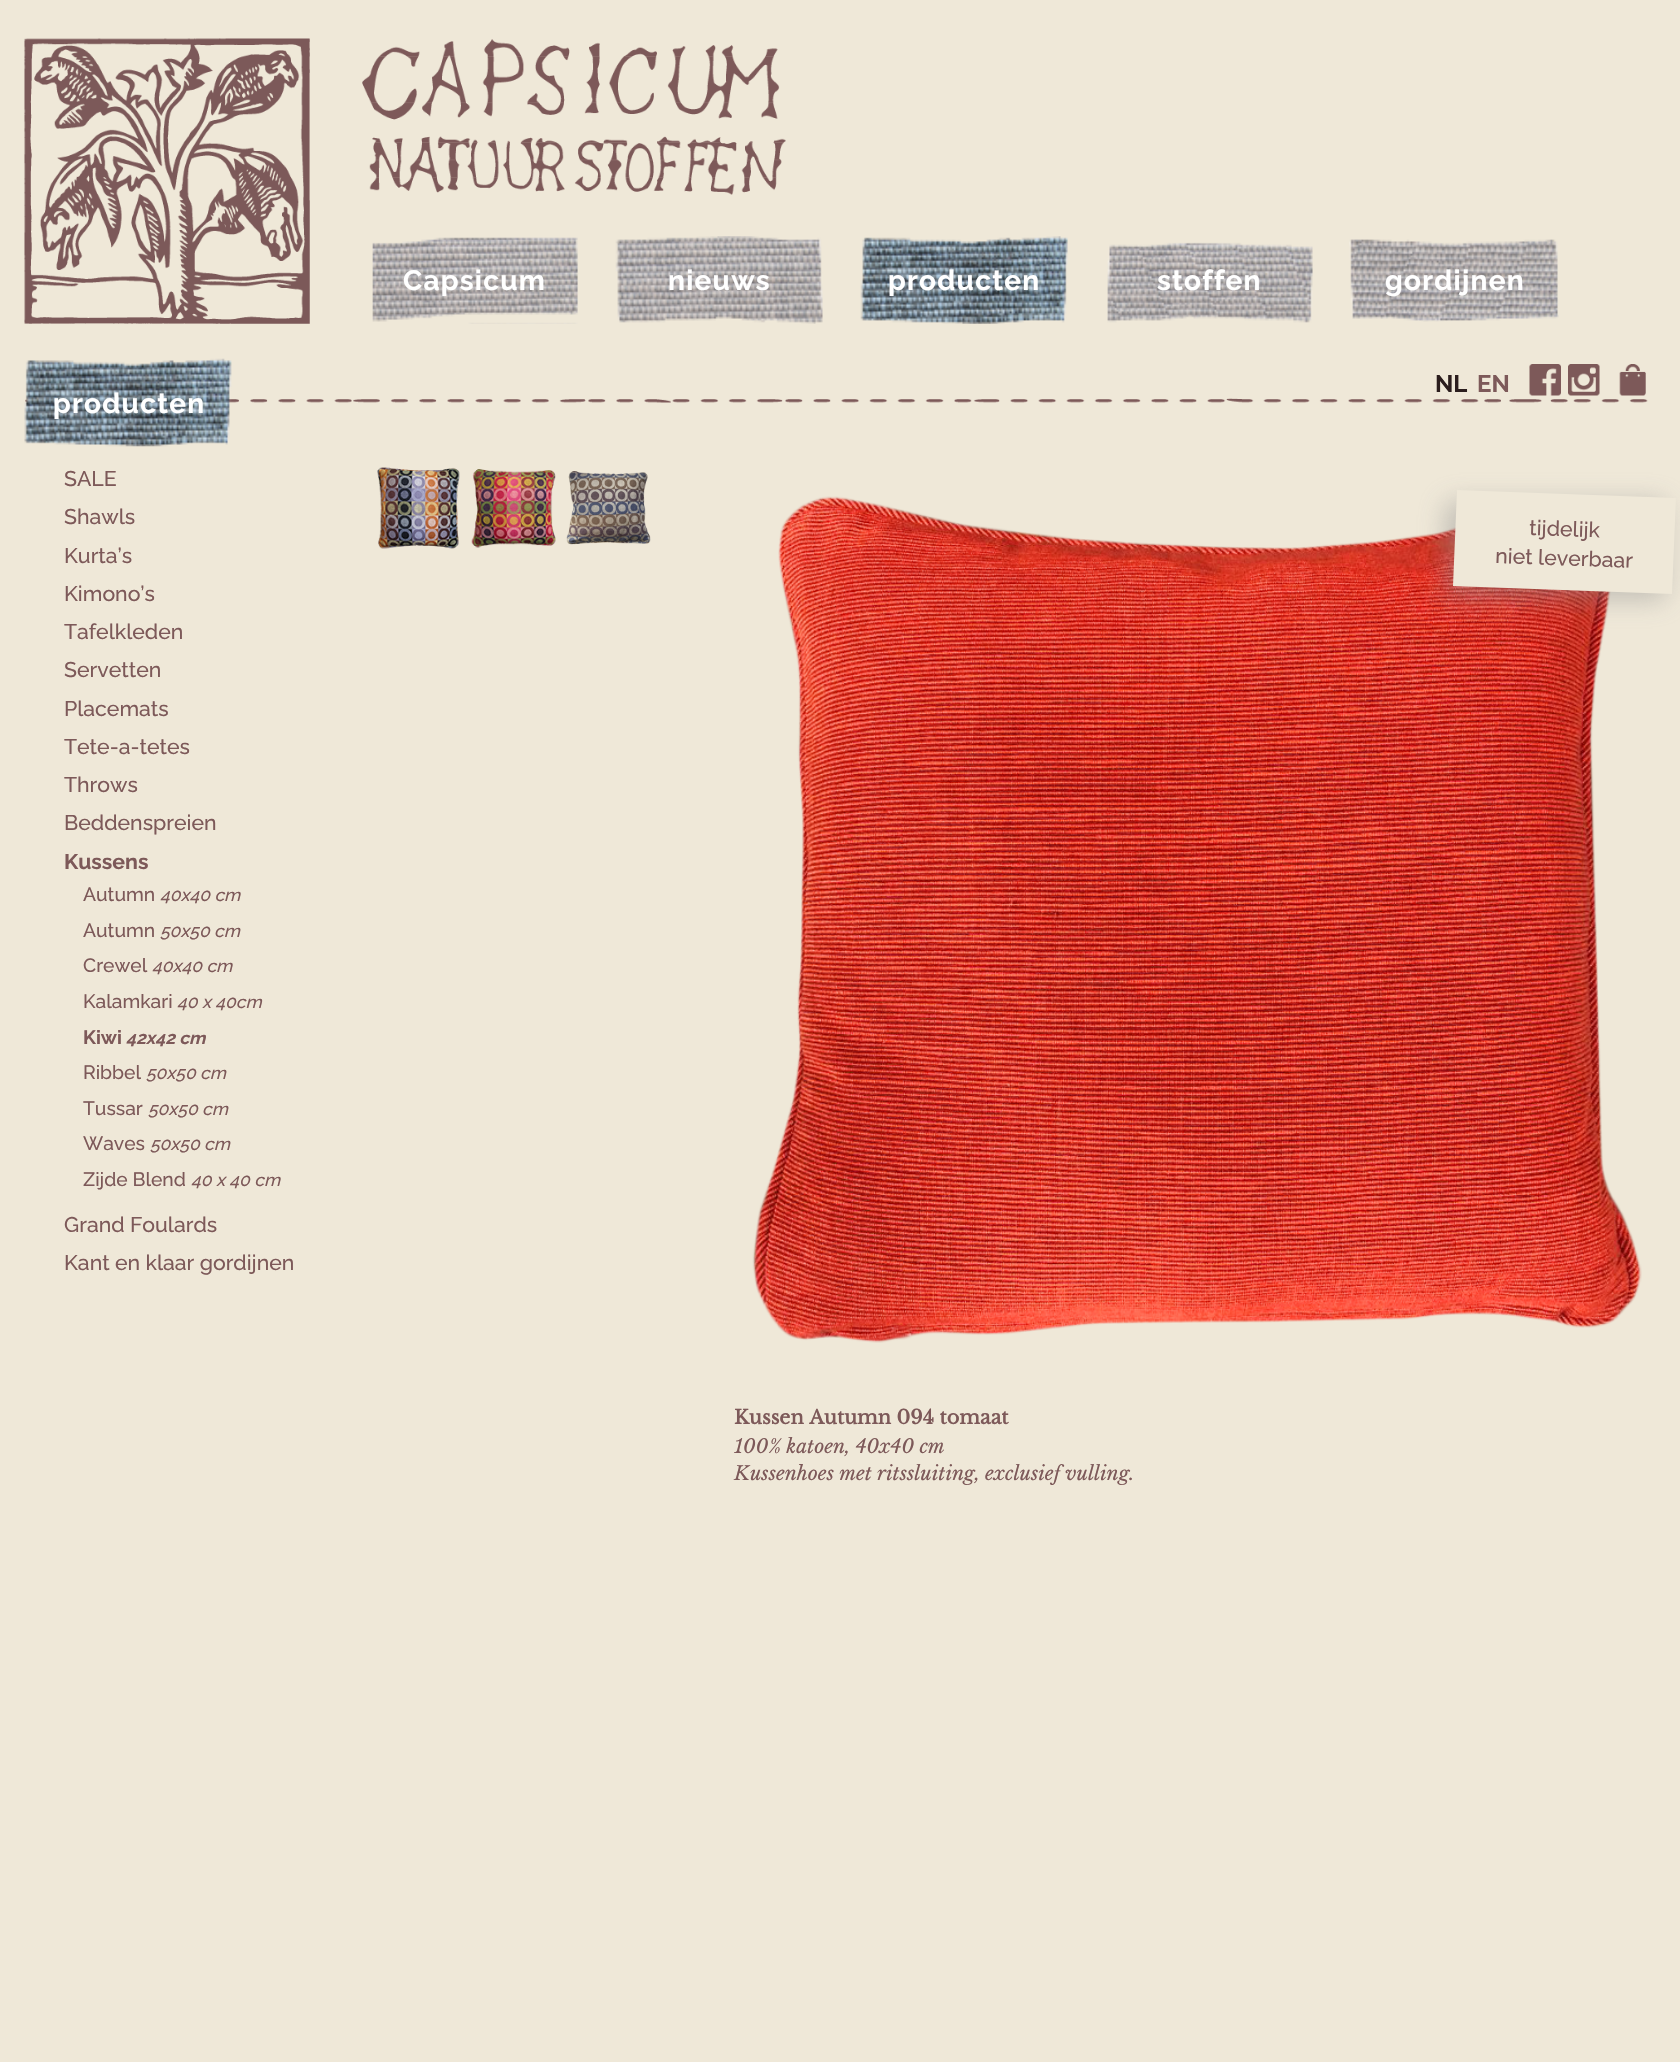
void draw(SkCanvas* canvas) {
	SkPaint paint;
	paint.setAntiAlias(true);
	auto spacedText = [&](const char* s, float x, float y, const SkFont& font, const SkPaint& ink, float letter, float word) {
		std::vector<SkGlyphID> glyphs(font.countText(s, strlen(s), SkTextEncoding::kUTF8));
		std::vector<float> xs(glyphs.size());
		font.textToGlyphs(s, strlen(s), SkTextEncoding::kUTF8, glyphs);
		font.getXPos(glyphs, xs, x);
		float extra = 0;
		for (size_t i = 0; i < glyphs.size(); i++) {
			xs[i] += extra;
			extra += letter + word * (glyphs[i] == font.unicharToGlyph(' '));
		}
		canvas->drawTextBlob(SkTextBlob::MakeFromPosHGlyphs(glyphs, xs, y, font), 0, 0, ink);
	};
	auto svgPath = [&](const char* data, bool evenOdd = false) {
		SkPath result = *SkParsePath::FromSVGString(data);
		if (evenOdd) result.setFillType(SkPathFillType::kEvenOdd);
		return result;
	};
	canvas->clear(0xffefe8d8);
	canvas->drawImageRect(SkImages::DeferredFromEncodedData(SkData::MakeFromFileName("img1.png")), SkRect::MakeXYWH(24, 38, 286, 286), SkSamplingOptions());
	canvas->drawImageRect(SkImages::DeferredFromEncodedData(SkData::MakeFromFileName("img2.png")), SkRect::MakeXYWH(362, 39, 424, 156), SkSamplingOptions());
	canvas->drawImageRect(SkImages::DeferredFromEncodedData(SkData::MakeFromFileName("img3.png")), SkRect::MakeXYWH(372, 237, 206, 87), SkSamplingOptions());
	SkFont f1(fontMgr->matchFamilyStyle("Raleway", SkFontStyle::Bold()), 28);
	f1.setSubpixel(true);
	paint.setColor(0xffffffff);
	spacedText("Capsicum", 403, 290, f1, paint, 1.25, 0);
	canvas->drawImageRect(SkImages::DeferredFromEncodedData(SkData::MakeFromFileName("img4.png")), SkRect::MakeXYWH(615, 236, 208, 88), SkSamplingOptions());
	spacedText("nieuws", 668, 290, f1, paint, 1.25, 0);
	canvas->drawImageRect(SkImages::DeferredFromEncodedData(SkData::MakeFromFileName("img5.png")), SkRect::MakeXYWH(860, 236, 208, 88), SkSamplingOptions());
	spacedText("producten", 888, 290, f1, paint, 1.25, 0);
	canvas->drawImageRect(SkImages::DeferredFromEncodedData(SkData::MakeFromFileName("img6.png")), SkRect::MakeXYWH(1107, 242, 206, 81), SkSamplingOptions());
	spacedText("stoffen", 1157, 290, f1, paint, 1.25, 0);
	canvas->drawImageRect(SkImages::DeferredFromEncodedData(SkData::MakeFromFileName("img7.png")), SkRect::MakeXYWH(1349, 239, 210, 83), SkSamplingOptions());
	spacedText("gordijnen", 1385, 290, f1, paint, 1.25, 0);
	canvas->drawImageRect(SkImages::DeferredFromEncodedData(SkData::MakeFromFileName("img8.png")), SkRect::MakeXYWH(25, 398, 1623, 5), SkSamplingOptions());
	SkFont f2(fontMgr->matchFamilyStyle("Raleway", SkFontStyle::Bold()), 24);
	f2.setSubpixel(true);
	paint.setColor(0xff2b1d1d);
	canvas->drawString("NL", 1435, 392, f2, paint);
	paint.setColor(0xff7d5959);
	canvas->drawString("EN", 1477, 392, f2, paint);
	canvas->drawImageRect(SkImages::DeferredFromEncodedData(SkData::MakeFromFileName("img9.png")), SkRect::MakeXYWH(1529, 364, 32, 32), SkSamplingOptions());
	canvas->drawImageRect(SkImages::DeferredFromEncodedData(SkData::MakeFromFileName("img10.png")), SkRect::MakeXYWH(1568, 364, 32, 32), SkSamplingOptions());
	canvas->drawImageRect(SkImages::DeferredFromEncodedData(SkData::MakeFromFileName("img11.png")), SkRect::MakeXYWH(1619, 364, 27, 32), SkSamplingOptions());
	canvas->drawImageRect(SkImages::DeferredFromEncodedData(SkData::MakeFromFileName("img12.png")), SkRect::MakeXYWH(24, 358, 208, 89), SkSamplingOptions());
	paint.setColor(0xffffffff);
	spacedText("producten", 53, 413, f1, paint, 1.25, 0);
	SkFont f3(fontMgr->matchFamilyStyle("Raleway", SkFontStyle(500, SkFontStyle::kNormal_Width, SkFontStyle::kUpright_Slant)), 21.25);
	f3.setSubpixel(true);
	paint.setColor(0xff7d5959);
	canvas->drawString("SALE", 64, 486, f3, paint);
	canvas->drawString("Shawls", 64, 524, f3, paint);
	canvas->drawString("Kurta’s", 64, 563, f3, paint);
	canvas->drawString("Kimono’s", 64, 601, f3, paint);
	canvas->drawString("Tafelkleden", 64, 639, f3, paint);
	canvas->drawString("Servetten", 64, 677, f3, paint);
	canvas->drawString("Placemats", 64, 716, f3, paint);
	canvas->drawString("Tete-a-tetes", 64, 754, f3, paint);
	canvas->drawString("Throws", 64, 792, f3, paint);
	canvas->drawString("Beddenspreien", 64, 830, f3, paint);
	SkFont f4(fontMgr->matchFamilyStyle("Raleway", SkFontStyle::Bold()), 21.25);
	f4.setSubpixel(true);
	canvas->drawString("Kussens", 64, 869, f4, paint);
	SkFont f5(fontMgr->matchFamilyStyle("Raleway", SkFontStyle(500, SkFontStyle::kNormal_Width, SkFontStyle::kUpright_Slant)), 19.25);
	f5.setSubpixel(true);
	canvas->drawString("Autumn", 83, 901, f5, paint);
	SkFont f6(fontMgr->matchFamilyStyle("Raleway", SkFontStyle(500, SkFontStyle::kNormal_Width, SkFontStyle::kItalic_Slant)), 17.5);
	f6.setSubpixel(true);
	canvas->drawString("40x40 cm", 160, 901, f6, paint);
	canvas->drawString("Autumn", 83, 937, f5, paint);
	canvas->drawString("50x50 cm", 160, 937, f6, paint);
	canvas->drawString("Crewel", 83, 972, f5, paint);
	canvas->drawString("40x40 cm", 152, 972, f6, paint);
	canvas->drawString("Kalamkari", 83, 1008, f5, paint);
	canvas->drawString("40 x 40cm", 177, 1008, f6, paint);
	SkFont f7(fontMgr->matchFamilyStyle("Raleway", SkFontStyle::Bold()), 19.25);
	f7.setSubpixel(true);
	canvas->drawString("Kiwi", 83, 1044, f7, paint);
	SkFont f8(fontMgr->matchFamilyStyle("Raleway", SkFontStyle::BoldItalic()), 17.5);
	f8.setSubpixel(true);
	canvas->drawString("42x42 cm", 126, 1044, f8, paint);
	canvas->drawString("Ribbel", 83, 1079, f5, paint);
	canvas->drawString("50x50 cm", 146, 1079, f6, paint);
	canvas->drawString("Tussar", 83, 1115, f5, paint);
	canvas->drawString("50x50 cm", 148, 1115, f6, paint);
	canvas->drawString("Waves", 83, 1150, f5, paint);
	canvas->drawString("50x50 cm", 150, 1150, f6, paint);
	canvas->drawString("Zijde Blend", 83, 1186, f5, paint);
	canvas->drawString("40 x 40 cm", 191, 1186, f6, paint);
	canvas->drawString("Grand Foulards", 64, 1232, f3, paint);
	canvas->drawString("Kant en klaar gordijnen", 64, 1270, f3, paint);
	canvas->drawImageRect(SkImages::DeferredFromEncodedData(SkData::MakeFromFileName("img13.png")), SkRect::MakeXYWH(377, 467, 83, 82), SkSamplingOptions());
	canvas->drawImageRect(SkImages::DeferredFromEncodedData(SkData::MakeFromFileName("img14.png")), SkRect::MakeXYWH(471, 469, 85, 79), SkSamplingOptions());
	canvas->drawImageRect(SkImages::DeferredFromEncodedData(SkData::MakeFromFileName("img15.png")), SkRect::MakeXYWH(566, 471, 85, 74), SkSamplingOptions());
	canvas->drawImageRect(SkImages::DeferredFromEncodedData(SkData::MakeFromFileName("img16.png")), SkRect::MakeXYWH(752, 496, 890, 847), SkSamplingOptions());
	paint.setColor(0x808f8f8f);
	paint.setMaskFilter(SkMaskFilter::MakeBlur(kNormal_SkBlurStyle, 13));
	canvas->drawRect(SkRect::MakeXYWH(1446, 502, 220, 97), paint);
	paint.setMaskFilter(nullptr);
	paint.setColor(0xffefe8d8);
	canvas->drawPath(svgPath("M1457 490L1676 498L1672 594L1453 586Z"), paint);
	paint.setColor(0xff7d5959);
	canvas->save();
	canvas->rotate(2, 1529, 535);
	canvas->drawString("tijdelijk", 1529, 535, f3, paint);
	canvas->restore();
	canvas->save();
	canvas->rotate(2, 1495, 563);
	canvas->drawString("niet leverbaar", 1495, 563, f3, paint);
	canvas->restore();
	SkFont f9(fontMgr->matchFamilyStyle("Libre Baskerville", SkFontStyle::Bold()), 19.25);
	f9.setSubpixel(true);
	canvas->drawString("Kussen Autumn 094 tomaat", 734, 1424, f9, paint);
	SkFont f10(fontMgr->matchFamilyStyle("Libre Baskerville", SkFontStyle::Italic()), 19.25);
	f10.setSubpixel(true);
	canvas->drawString("100% katoen, 40x40 cm", 734, 1453, f10, paint);
	canvas->drawString("Kussenhoes met ritssluiting, exclusief vulling.", 734, 1480, f10, paint);
}
